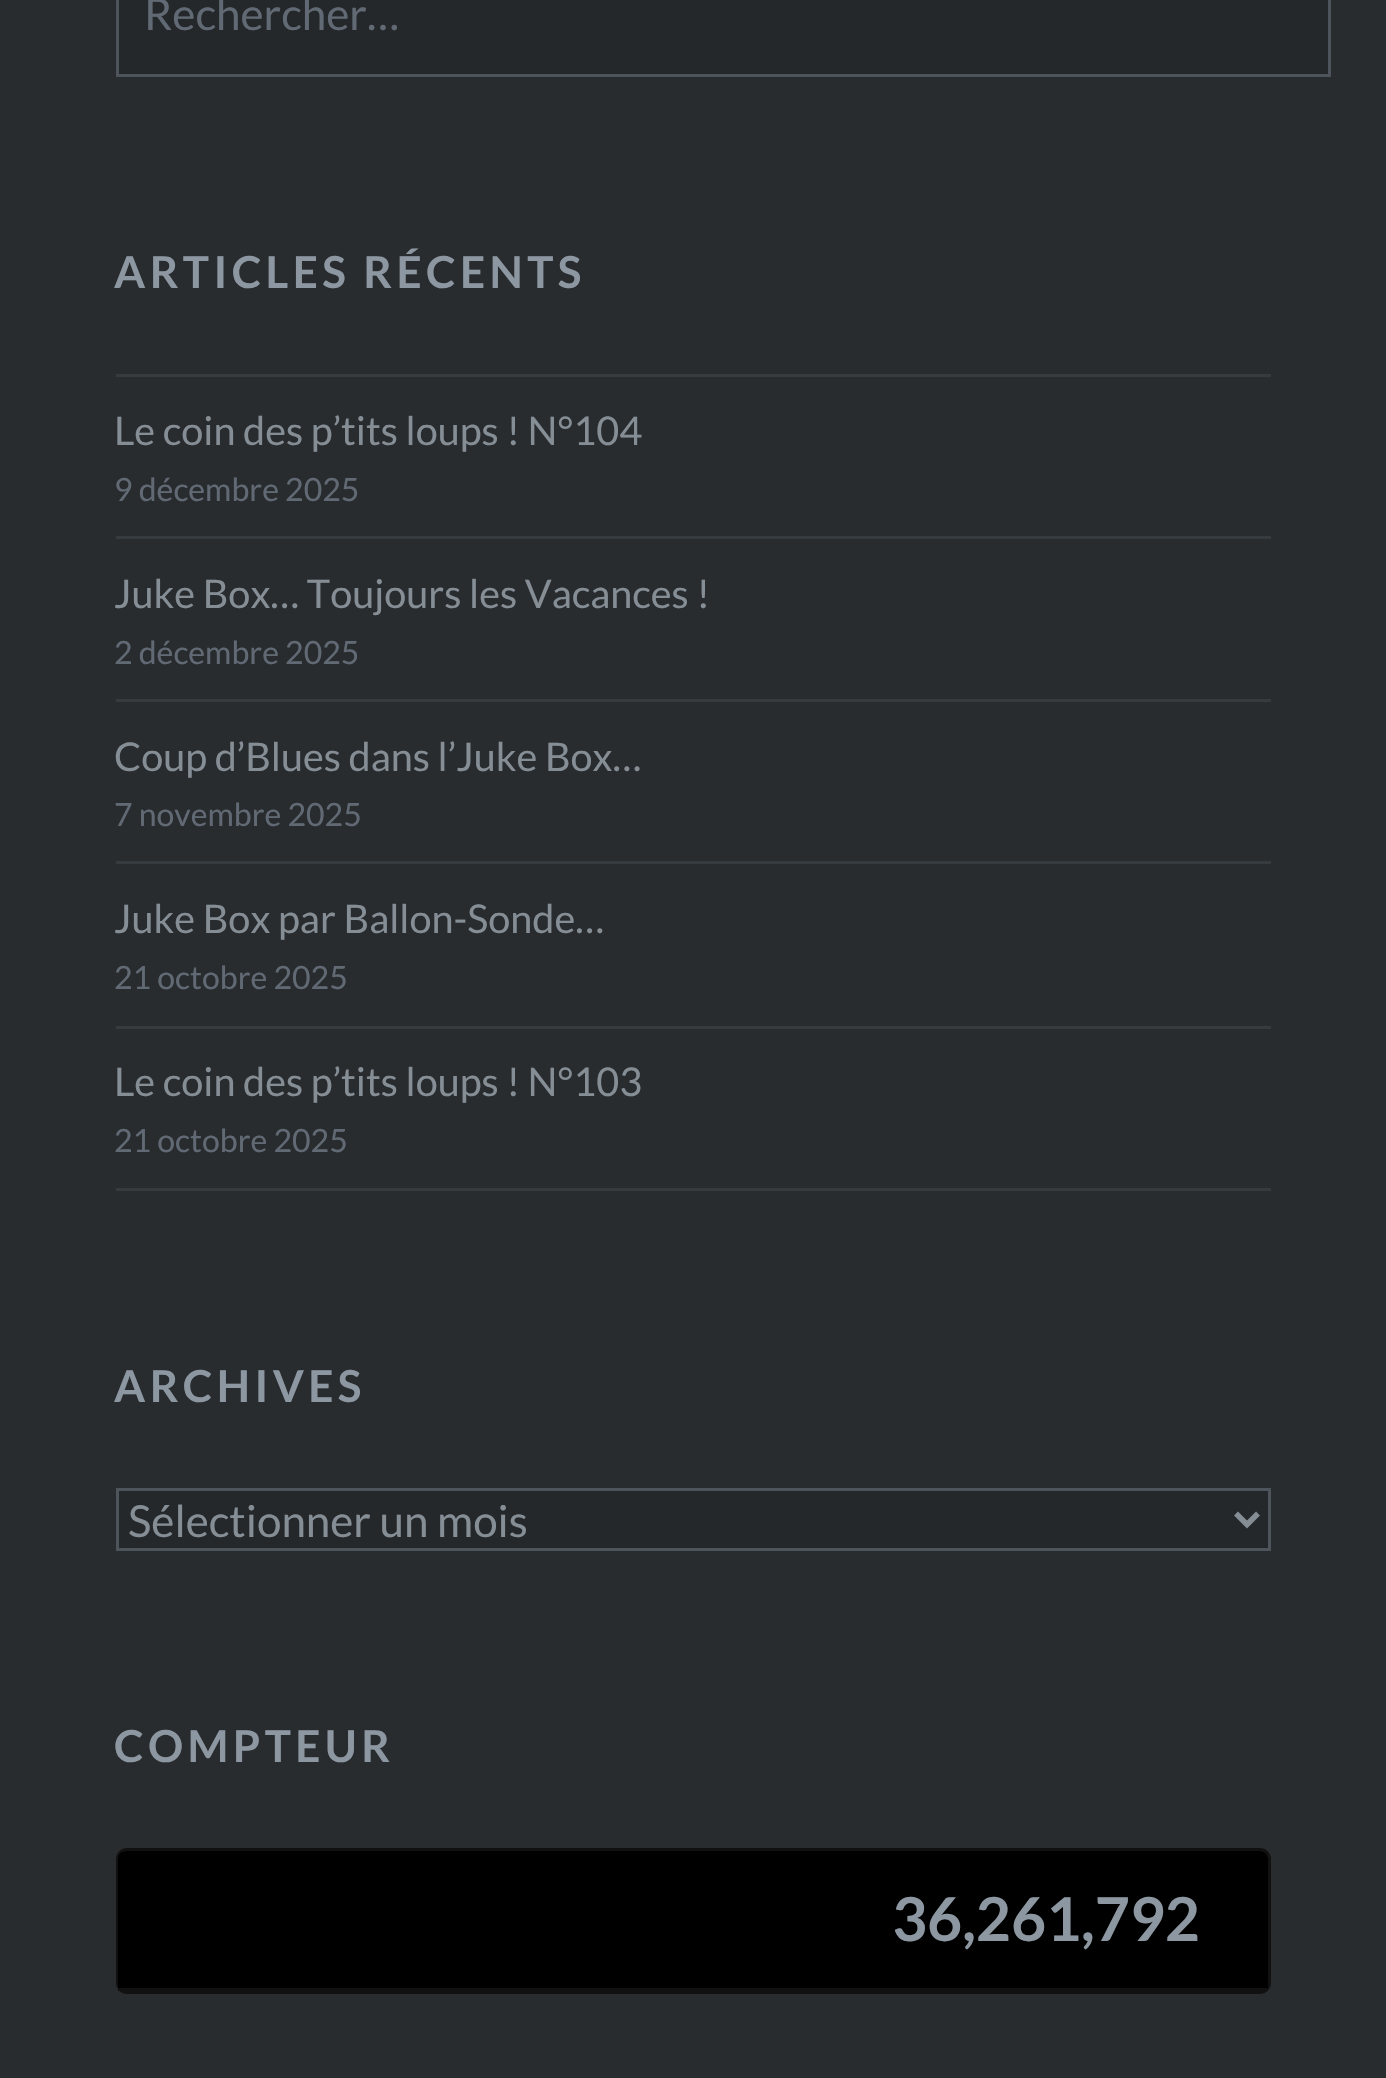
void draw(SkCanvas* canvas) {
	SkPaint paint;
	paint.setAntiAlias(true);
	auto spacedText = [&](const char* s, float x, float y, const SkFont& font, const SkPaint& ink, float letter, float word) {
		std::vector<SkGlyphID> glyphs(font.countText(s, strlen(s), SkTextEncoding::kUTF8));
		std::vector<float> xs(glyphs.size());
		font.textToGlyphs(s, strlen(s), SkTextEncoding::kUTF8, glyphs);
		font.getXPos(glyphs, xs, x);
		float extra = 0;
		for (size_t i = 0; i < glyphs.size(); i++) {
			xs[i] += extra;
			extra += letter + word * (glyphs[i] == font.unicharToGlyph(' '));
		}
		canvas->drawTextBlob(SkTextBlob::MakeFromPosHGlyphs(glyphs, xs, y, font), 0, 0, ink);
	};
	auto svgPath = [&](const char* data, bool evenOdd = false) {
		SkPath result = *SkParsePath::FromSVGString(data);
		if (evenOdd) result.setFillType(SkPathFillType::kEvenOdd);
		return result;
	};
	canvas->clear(0xff292c2f);
	paint.setColor(0xff25282a);
	canvas->drawRect(SkRect::MakeXYWH(117.5, -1.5, 1212, 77), paint);
	paint.setStroke(true);
	paint.setStrokeWidth(3);
	paint.setColor(0xff4d545b);
	canvas->drawRect(SkRect::MakeXYWH(117.5, -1.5, 1212, 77), paint);
	SkFont f1(fontMgr->matchFamilyStyle("Lato", SkFontStyle::Normal()), 44);
	f1.setSubpixel(true);
	paint.setStroke(false);
	paint.setColor(0xff616a74);
	canvas->drawString("Rechercher…", 144, 30, f1, paint);
	SkFont f2(fontMgr->matchFamilyStyle("Lato", SkFontStyle::Bold()), 44);
	f2.setSubpixel(true);
	paint.setColor(0xff8c97a2);
	spacedText("ARTICLES RÉCENTS", 114, 288, f2, paint, 4.4, 0);
	paint.setColor(0xff363b40);
	canvas->drawRect(SkRect::MakeXYWH(116, 374, 1155, 3), paint);
	canvas->drawRect(SkRect::MakeXYWH(116, 536, 1155, 3), paint);
	SkFont f3(fontMgr->matchFamilyStyle("Lato", SkFontStyle::Normal()), 39.6);
	f3.setSubpixel(true);
	paint.setColor(0xff858d95);
	canvas->drawString("Le coin des p’tits loups ! N°104", 114, 445, f3, paint);
	SkFont f4(fontMgr->matchFamilyStyle("Lato", SkFontStyle::Normal()), 32);
	f4.setSubpixel(true);
	paint.setColor(0xff616a74);
	canvas->drawString("9 décembre 2025", 114, 501, f4, paint);
	paint.setColor(0xff363b40);
	canvas->drawRect(SkRect::MakeXYWH(116, 699, 1155, 3), paint);
	paint.setColor(0xff858d95);
	canvas->drawString("Juke Box… Toujours les Vacances !", 114, 608, f3, paint);
	paint.setColor(0xff616a74);
	canvas->drawString("2 décembre 2025", 114, 664, f4, paint);
	paint.setColor(0xff363b40);
	canvas->drawRect(SkRect::MakeXYWH(116, 861, 1155, 3), paint);
	paint.setColor(0xff858d95);
	canvas->drawString("Coup d’Blues dans l’Juke Box…", 114, 771, f3, paint);
	paint.setColor(0xff616a74);
	canvas->drawString("7 novembre 2025", 114, 826, f4, paint);
	paint.setColor(0xff363b40);
	canvas->drawRect(SkRect::MakeXYWH(116, 1026, 1155, 3), paint);
	paint.setColor(0xff858d95);
	canvas->drawString("Juke Box par Ballon-Sonde…", 114, 933, f3, paint);
	paint.setColor(0xff616a74);
	canvas->drawString("21 octobre 2025", 114, 989, f4, paint);
	paint.setColor(0xff363b40);
	canvas->drawRect(SkRect::MakeXYWH(116, 1188, 1155, 3), paint);
	paint.setColor(0xff858d95);
	canvas->drawString("Le coin des p’tits loups ! N°103", 114, 1096, f3, paint);
	paint.setColor(0xff616a74);
	canvas->drawString("21 octobre 2025", 114, 1152, f4, paint);
	paint.setColor(0xff8c97a2);
	spacedText("ARCHIVES", 114, 1402, f2, paint, 4.4, 0);
	paint.setColor(0xff25282a);
	canvas->drawRect(SkRect::MakeXYWH(117.5, 1489.5, 1152, 60), paint);
	paint.setStroke(true);
	paint.setColor(0xff4d545b);
	canvas->drawRect(SkRect::MakeXYWH(117.5, 1489.5, 1152, 60), paint);
	paint.setStrokeWidth(5.5);
	paint.setColor(0xff858d95);
	canvas->drawPath(svgPath("M1236 1513.5L1247 1524.5L1258 1513.5"), paint);
	paint.setStroke(false);
	canvas->drawString("Sélectionner un mois", 128, 1537, f1, paint);
	paint.setColor(0xff8c97a2);
	spacedText("COMPTEUR", 114, 1762, f2, paint, 4.4, 0);
	paint.setStroke(true);
	paint.setStrokeWidth(3);
	paint.setColor(0xff111111);
	canvas->drawRoundRect(SkRect::MakeXYWH(117.5, 1849.5, 1152, 143), 9.5, 9.5, paint);
	paint.setStroke(false);
	paint.setColor(0xff000000);
	canvas->drawPath(svgPath("M126 1851H1260C1264.5 1851 1268 1854.5 1268 1859V1991H118V1859C118 1854.5 121.5 1851 126 1851Z"), paint);
	paint.setColor(0xff111111);
	canvas->drawRect(SkRect::MakeXYWH(118, 1988, 1150, 3), paint);
	SkFont f5(fontMgr->matchFamilyStyle("Lato", SkFontStyle::Bold()), 60.5);
	f5.setSubpixel(true);
	paint.setColor(0xff8c97a2);
	canvas->drawString("36,261,792", 892, 1941, f5, paint);
}
